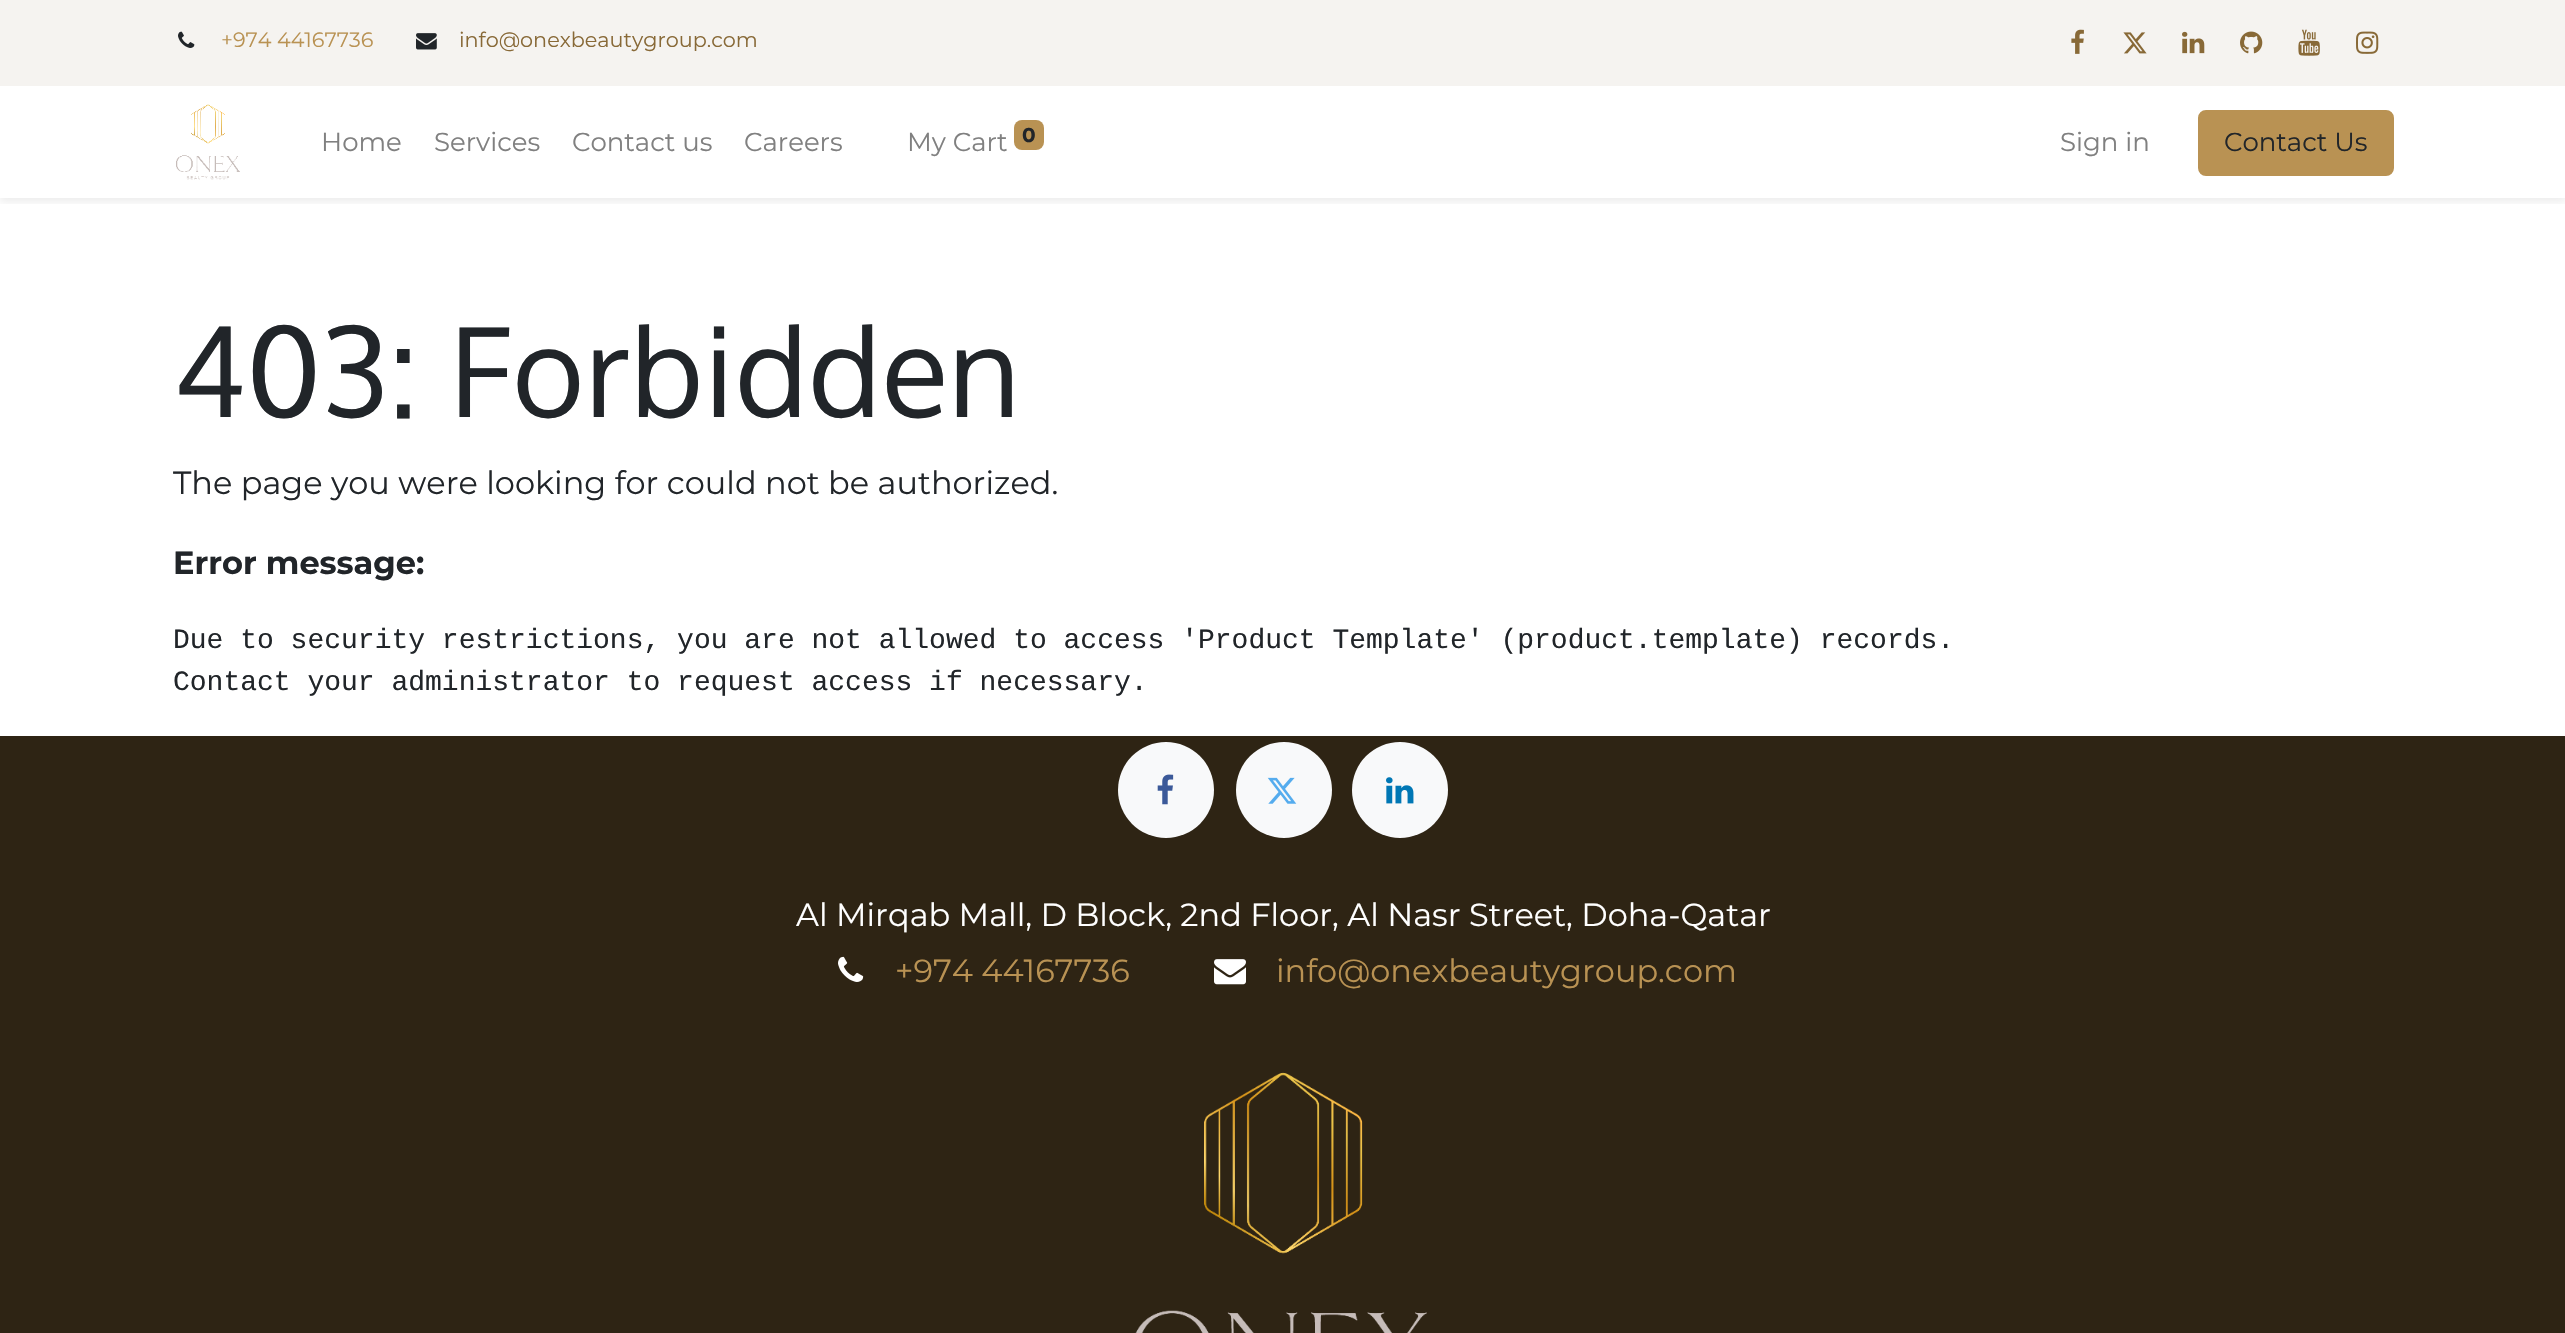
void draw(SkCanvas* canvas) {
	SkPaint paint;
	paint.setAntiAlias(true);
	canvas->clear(0xffffffff);
	paint.setColor(0xfff5f3f0);
	canvas->drawRect(SkRect::MakeXYWH(0, 0, 2565, 86), paint);
	canvas->drawImageRect(SkImages::DeferredFromEncodedData(SkData::MakeFromFileName("img1.png")), SkRect::MakeXYWH(178, 31, 17, 17), SkSamplingOptions());
	SkFont f1(fontMgr->matchFamilyStyle("Montserrat", SkFontStyle::Normal()), 20.75);
	f1.setSubpixel(true);
	paint.setColor(0xffb99253);
	canvas->drawString("+974 44167736", 221, 47, f1, paint);
	canvas->drawImageRect(SkImages::DeferredFromEncodedData(SkData::MakeFromFileName("img2.png")), SkRect::MakeXYWH(416, 33, 21, 17), SkSamplingOptions());
	paint.setColor(0xff886937);
	canvas->drawString("info@onexbeautygroup.com", 459, 47, f1, paint);
	canvas->drawImageRect(SkImages::DeferredFromEncodedData(SkData::MakeFromFileName("img3.png")), SkRect::MakeXYWH(2071, 29, 13, 25), SkSamplingOptions());
	canvas->drawImageRect(SkImages::DeferredFromEncodedData(SkData::MakeFromFileName("img4.png")), SkRect::MakeXYWH(2123, 32, 24, 22), SkSamplingOptions());
	canvas->drawImageRect(SkImages::DeferredFromEncodedData(SkData::MakeFromFileName("img5.png")), SkRect::MakeXYWH(2182, 31, 23, 23), SkSamplingOptions());
	canvas->drawImageRect(SkImages::DeferredFromEncodedData(SkData::MakeFromFileName("img6.png")), SkRect::MakeXYWH(2240, 31, 23, 23), SkSamplingOptions());
	canvas->drawImageRect(SkImages::DeferredFromEncodedData(SkData::MakeFromFileName("img7.png")), SkRect::MakeXYWH(2298, 29, 22, 27), SkSamplingOptions());
	canvas->drawImageRect(SkImages::DeferredFromEncodedData(SkData::MakeFromFileName("img8.png")), SkRect::MakeXYWH(2356, 31, 23, 23), SkSamplingOptions());
	canvas->save();
	canvas->clipRect(SkRect::MakeXYWH(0, 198, 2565, 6));
	paint.setColor(0x12000000);
	paint.setMaskFilter(SkMaskFilter::MakeBlur(kNormal_SkBlurStyle, 4));
	canvas->drawRect(SkRect::MakeXYWH(0, 90, 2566, 112), paint);
	paint.setMaskFilter(nullptr);
	canvas->restore();
	canvas->drawImageRect(SkImages::DeferredFromEncodedData(SkData::MakeFromFileName("img9.png")), SkRect::MakeXYWH(176, 104, 64, 76), SkSamplingOptions());
	SkFont f2(fontMgr->matchFamilyStyle("Montserrat", SkFontStyle::Normal()), 26);
	f2.setSubpixel(true);
	paint.setColor(0xff808080);
	canvas->drawString("Home", 321, 151, f2, paint);
	canvas->drawString("Services", 434, 151, f2, paint);
	canvas->drawString("Contact us", 572, 151, f2, paint);
	canvas->drawString("Careers", 744, 151, f2, paint);
	canvas->drawString("My Cart", 907, 151, f2, paint);
	paint.setColor(0xffb99253);
	canvas->drawRoundRect(SkRect::MakeXYWH(1014, 120, 30, 30), 8, 8, paint);
	SkFont f3(fontMgr->matchFamilyStyle("Montserrat", SkFontStyle::Bold()), 20);
	f3.setSubpixel(true);
	paint.setColor(0xff212529);
	canvas->drawString("0", 1022, 142, f3, paint);
	paint.setColor(0xff808080);
	canvas->drawString("Sign in", 2060, 151, f2, paint);
	paint.setColor(0xffb99253);
	canvas->drawRoundRect(SkRect::MakeXYWH(2199, 111, 194, 64), 7, 7, paint);
	paint.setStroke(true);
	paint.setStrokeWidth(2);
	canvas->drawRoundRect(SkRect::MakeXYWH(2199, 111, 194, 64), 7, 7, paint);
	paint.setStroke(false);
	paint.setColor(0xff212529);
	canvas->drawString("Contact Us", 2224, 151, f2, paint);
	SkFont f4(fontMgr->matchFamilyStyle("Oxygen", SkFontStyle::Normal()), 124);
	f4.setSubpixel(true);
	canvas->drawString("403: Forbidden", 173, 417, f4, paint);
	SkFont f5(fontMgr->matchFamilyStyle("Montserrat", SkFontStyle::Normal()), 32);
	f5.setSubpixel(true);
	canvas->drawString("The page you were looking for could not be authorized.", 173, 494, f5, paint);
	SkFont f6(fontMgr->matchFamilyStyle("Montserrat", SkFontStyle::Bold()), 32);
	f6.setSubpixel(true);
	canvas->drawString("Error message:", 173, 574, f6, paint);
	SkFont f7(fontMgr->matchFamilyStyle("Liberation Mono", SkFontStyle::Normal()), 28);
	f7.setSubpixel(true);
	canvas->drawString("Due to security restrictions, you are not allowed to access 'Product Template' (product.template) records.", 173, 648, f7, paint);
	canvas->drawString("Contact your administrator to request access if necessary.", 173, 690, f7, paint);
	paint.setColor(0xff2e2414);
	canvas->drawRect(SkRect::MakeXYWH(0, 736, 2565, 597), paint);
	paint.setColor(0xfff8f9fa);
	canvas->drawCircle(1166, 790, 48, paint);
	canvas->drawImageRect(SkImages::DeferredFromEncodedData(SkData::MakeFromFileName("img10.png")), SkRect::MakeXYWH(1157, 774, 17, 31), SkSamplingOptions());
	canvas->drawCircle(1284, 790, 48, paint);
	canvas->drawImageRect(SkImages::DeferredFromEncodedData(SkData::MakeFromFileName("img11.png")), SkRect::MakeXYWH(1267, 777, 30, 27), SkSamplingOptions());
	canvas->drawCircle(1400, 790, 48, paint);
	canvas->drawImageRect(SkImages::DeferredFromEncodedData(SkData::MakeFromFileName("img12.png")), SkRect::MakeXYWH(1386, 777, 28, 27), SkSamplingOptions());
	paint.setColor(0xffffffff);
	canvas->drawString("Al Mirqab Mall, D Block, 2nd Floor, Al Nasr Street, Doha-Qatar", 796, 926, f5, paint);
	canvas->drawImageRect(SkImages::DeferredFromEncodedData(SkData::MakeFromFileName("img13.png")), SkRect::MakeXYWH(838, 956, 26, 26), SkSamplingOptions());
	paint.setColor(0xffb99253);
	canvas->drawString("+974 44167736", 895, 982, f5, paint);
	canvas->drawImageRect(SkImages::DeferredFromEncodedData(SkData::MakeFromFileName("img14.png")), SkRect::MakeXYWH(1214, 959, 32, 26), SkSamplingOptions());
	canvas->drawString("info@onexbeautygroup.com", 1276, 982, f5, paint);
	canvas->drawImageRect(SkImages::DeferredFromEncodedData(SkData::MakeFromFileName("img15.png")), SkRect::MakeXYWH(1135, 1072, 292, 261), SkSamplingOptions());
}
